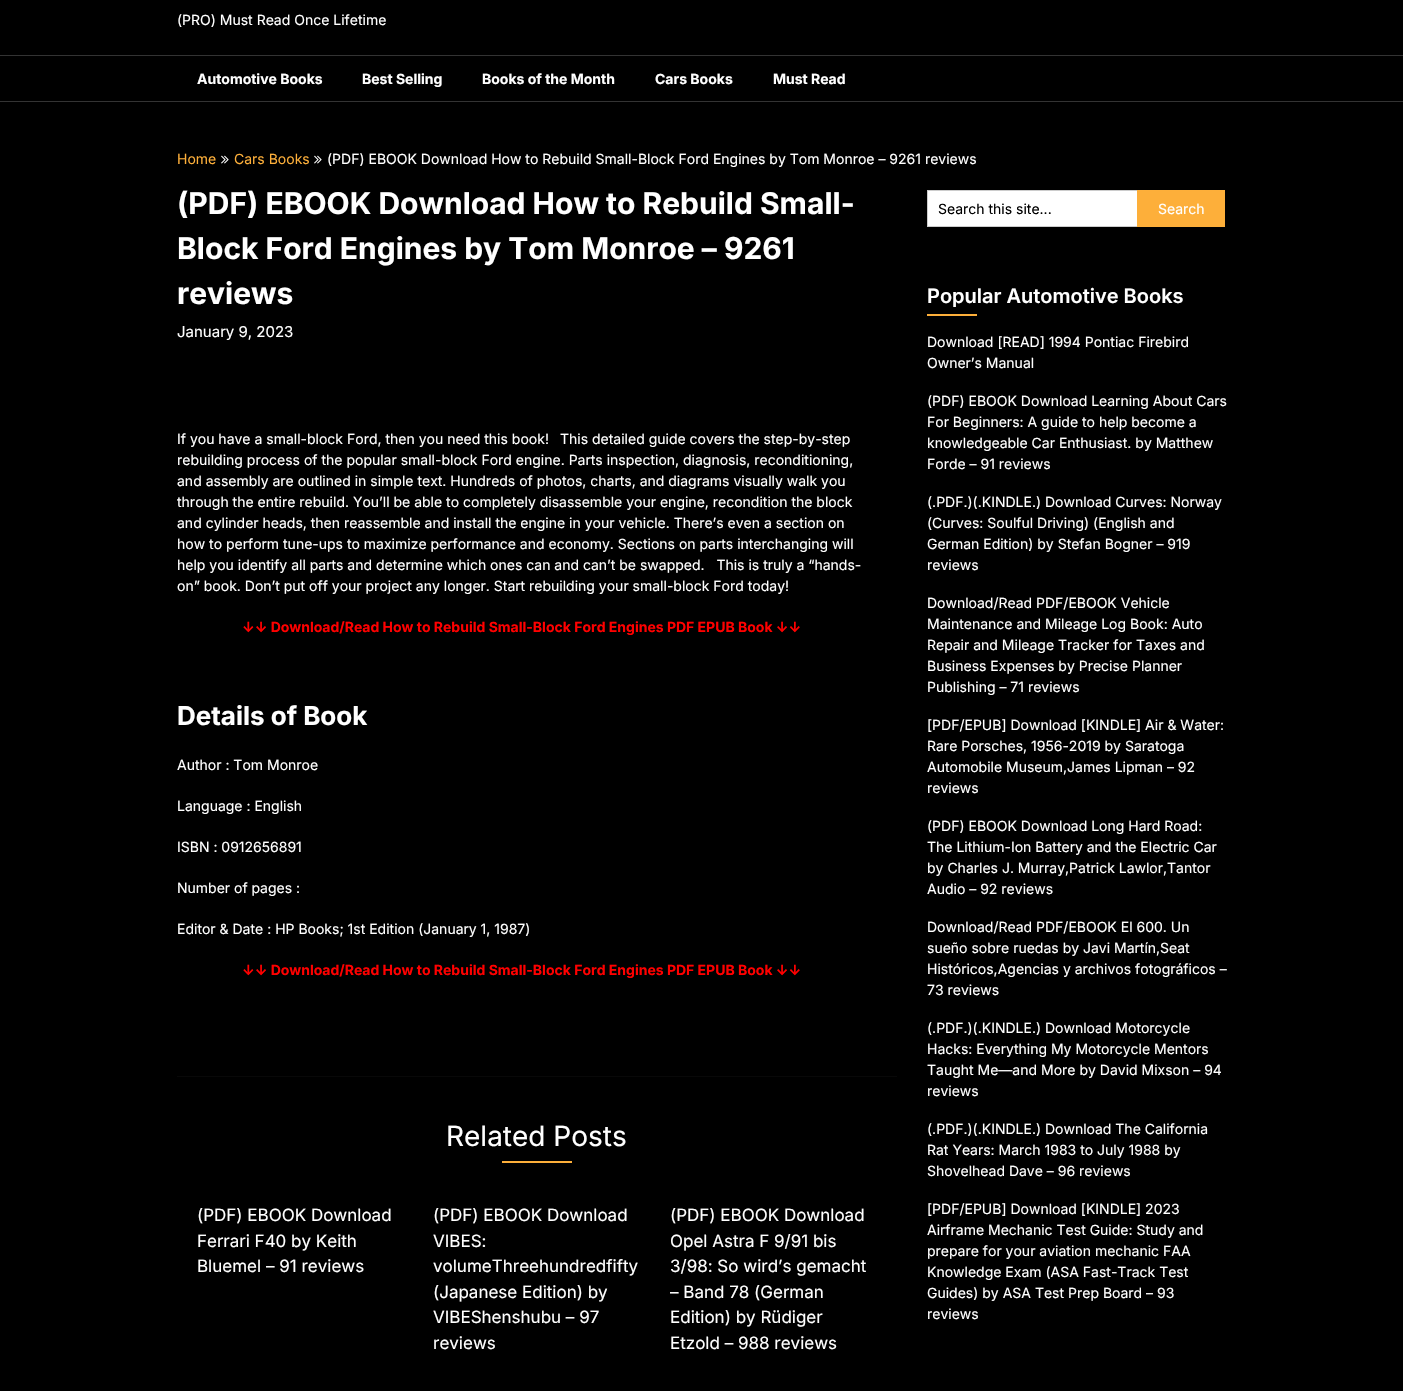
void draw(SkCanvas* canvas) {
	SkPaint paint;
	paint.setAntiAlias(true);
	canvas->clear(0xff000000);
	SkFont f1(fontMgr->matchFamilyStyle("Inter", SkFontStyle::Normal()), 14);
	f1.setSubpixel(true);
	paint.setColor(0xffffffff);
	canvas->drawString("(PRO) Must Read Once Lifetime", 177, 25, f1, paint);
	paint.setColor(0xff333333);
	canvas->drawRect(SkRect::MakeXYWH(0, 55, 1403, 1), paint);
	canvas->drawRect(SkRect::MakeXYWH(0, 101, 1403, 1), paint);
	SkFont f2(fontMgr->matchFamilyStyle("Inter", SkFontStyle::Bold()), 14);
	f2.setSubpixel(true);
	paint.setColor(0xffffffff);
	canvas->drawString("Automotive Books", 197, 84, f2, paint);
	canvas->drawString("Best Selling", 362, 84, f2, paint);
	canvas->drawString("Books of the Month", 482, 84, f2, paint);
	canvas->drawString("Cars Books", 655, 84, f2, paint);
	canvas->drawString("Must Read", 773, 84, f2, paint);
	paint.setColor(0xfffdaf3a);
	canvas->drawString("Home", 177, 164, f1, paint);
	canvas->drawImageRect(SkImages::DeferredFromEncodedData(SkData::MakeFromFileName("img1.png")), SkRect::MakeXYWH(221, 155, 8, 9), SkSamplingOptions());
	canvas->drawString("Cars Books", 234, 164, f1, paint);
	canvas->drawImageRect(SkImages::DeferredFromEncodedData(SkData::MakeFromFileName("img1.png")), SkRect::MakeXYWH(314, 155, 8, 9), SkSamplingOptions());
	paint.setColor(0xffffffff);
	canvas->drawString("(PDF) EBOOK Download How to Rebuild Small-Block Ford Engines by Tom Monroe – 9261 reviews", 327, 164, f1, paint);
	SkFont f3(fontMgr->matchFamilyStyle("Inter", SkFontStyle::Bold()), 30);
	f3.setSubpixel(true);
	canvas->drawString("(PDF) EBOOK Download How to Rebuild Small-", 177, 214, f3, paint);
	canvas->drawString("Block Ford Engines by Tom Monroe – 9261", 177, 259, f3, paint);
	canvas->drawString("reviews", 177, 304, f3, paint);
	SkFont f4(fontMgr->matchFamilyStyle("Inter", SkFontStyle::Normal()), 15);
	f4.setSubpixel(true);
	canvas->drawString("January 9, 2023", 177, 337, f4, paint);
	canvas->drawString("If you have a small-block Ford, then you need this book!", 177, 444, f1, paint);
	canvas->drawString("This detailed guide covers the step-by-step", 560, 444, f1, paint);
	canvas->drawString("rebuilding process of the popular small-block Ford engine. Parts inspection, diagnosis, reconditioning,", 177, 465, f1, paint);
	canvas->drawString("and assembly are outlined in simple text. Hundreds of photos, charts, and diagrams visually walk you", 177, 486, f1, paint);
	canvas->drawString("through the entire rebuild. You’ll be able to completely disassemble your engine, recondition the block", 177, 507, f1, paint);
	canvas->drawString("and cylinder heads, then reassemble and install the engine in your vehicle. There’s even a section on", 177, 528, f1, paint);
	canvas->drawString("how to perform tune-ups to maximize performance and economy. Sections on parts interchanging will", 177, 549, f1, paint);
	canvas->drawString("help you identify all parts and determine which ones can and can’t be swapped.   This is truly a “hands-", 177, 570, f1, paint);
	canvas->drawString("on” book. Don’t put off your project any longer. Start rebuilding your small-block Ford today!", 177, 591, f1, paint);
	paint.setColor(0xffff0000);
	canvas->drawString("↓↓ Download/Read How to Rebuild Small-Block Ford Engines PDF EPUB Book ↓↓", 242, 632, f2, paint);
	SkFont f5(fontMgr->matchFamilyStyle("Inter", SkFontStyle::Bold()), 26);
	f5.setSubpixel(true);
	paint.setColor(0xffffffff);
	canvas->drawString("Details of Book", 177, 725, f5, paint);
	canvas->drawString("Author : Tom Monroe", 177, 770, f1, paint);
	canvas->drawString("Language : English", 177, 811, f1, paint);
	canvas->drawString("ISBN : 0912656891", 177, 852, f1, paint);
	canvas->drawString("Number of pages :", 177, 893, f1, paint);
	canvas->drawString("Editor & Date : HP Books; 1st Edition (January 1, 1987)", 177, 934, f1, paint);
	paint.setColor(0xffff0000);
	canvas->drawString("↓↓ Download/Read How to Rebuild Small-Block Ford Engines PDF EPUB Book ↓↓", 242, 975, f2, paint);
	paint.setColor(0xff080808);
	canvas->drawRect(SkRect::MakeXYWH(177, 1076, 720, 1), paint);
	SkFont f6(fontMgr->matchFamilyStyle("Inter", SkFontStyle::Normal()), 28);
	f6.setSubpixel(true);
	paint.setColor(0xffffffff);
	canvas->drawString("Related Posts", 446, 1146, f6, paint);
	paint.setColor(0xfffdaf3a);
	canvas->drawRect(SkRect::MakeXYWH(502, 1161, 70, 2), paint);
	SkFont f7(fontMgr->matchFamilyStyle("Inter", SkFontStyle::Normal()), 17);
	f7.setSubpixel(true);
	paint.setColor(0xffffffff);
	canvas->drawString("(PDF) EBOOK Download", 197, 1221, f7, paint);
	canvas->drawString("Ferrari F40 by Keith", 197, 1247, f7, paint);
	canvas->drawString("Bluemel – 91 reviews", 197, 1272, f7, paint);
	canvas->drawString("(PDF) EBOOK Download", 433, 1221, f7, paint);
	canvas->drawString("VIBES:", 433, 1247, f7, paint);
	canvas->drawString("volumeThreehundredfifty", 433, 1272, f7, paint);
	canvas->drawString("(Japanese Edition) by", 433, 1298, f7, paint);
	canvas->drawString("VIBEShenshubu – 97", 433, 1323, f7, paint);
	canvas->drawString("reviews", 433, 1349, f7, paint);
	canvas->drawString("(PDF) EBOOK Download", 670, 1221, f7, paint);
	canvas->drawString("Opel Astra F 9/91 bis", 670, 1247, f7, paint);
	canvas->drawString("3/98: So wird’s gemacht", 670, 1272, f7, paint);
	canvas->drawString("– Band 78 (German", 670, 1298, f7, paint);
	canvas->drawString("Edition) by Rüdiger", 670, 1323, f7, paint);
	canvas->drawString("Etzold – 988 reviews", 670, 1349, f7, paint);
	canvas->drawRect(SkRect::MakeXYWH(928, 191, 209, 35), paint);
	paint.setColor(0xffcccccc);
	canvas->drawRect(SkRect::MakeXYWH(927, 190, 210, 1), paint);
	canvas->drawRect(SkRect::MakeXYWH(927, 226, 210, 1), paint);
	canvas->drawRect(SkRect::MakeXYWH(927, 190, 1, 37), paint);
	paint.setColor(0xff000000);
	canvas->drawString("Search this site...", 938, 214, f1, paint);
	paint.setColor(0xfffdaf3a);
	canvas->drawRect(SkRect::MakeXYWH(1137, 190, 88, 37), paint);
	paint.setColor(0xffffffff);
	canvas->drawString("Search", 1158, 214, f1, paint);
	SkFont f8(fontMgr->matchFamilyStyle("Inter", SkFontStyle(600, SkFontStyle::kNormal_Width, SkFontStyle::kUpright_Slant)), 20);
	f8.setSubpixel(true);
	canvas->drawString("Popular Automotive Books", 927, 303, f8, paint);
	paint.setColor(0xfffdaf3a);
	canvas->drawRect(SkRect::MakeXYWH(927, 314, 50, 2), paint);
	paint.setColor(0xffffffff);
	canvas->drawString("Download [READ] 1994 Pontiac Firebird", 927, 347, f1, paint);
	canvas->drawString("Owner’s Manual", 927, 368, f1, paint);
	canvas->drawString("(PDF) EBOOK Download Learning About Cars", 927, 406, f1, paint);
	canvas->drawString("For Beginners: A guide to help become a", 927, 427, f1, paint);
	canvas->drawString("knowledgeable Car Enthusiast. by Matthew", 927, 448, f1, paint);
	canvas->drawString("Forde – 91 reviews", 927, 469, f1, paint);
	canvas->drawString("(.PDF.)(.KINDLE.) Download Curves: Norway", 927, 507, f1, paint);
	canvas->drawString("(Curves: Soulful Driving) (English and", 927, 528, f1, paint);
	canvas->drawString("German Edition) by Stefan Bogner – 919", 927, 549, f1, paint);
	canvas->drawString("reviews", 927, 570, f1, paint);
	canvas->drawString("Download/Read PDF/EBOOK Vehicle", 927, 608, f1, paint);
	canvas->drawString("Maintenance and Mileage Log Book: Auto", 927, 629, f1, paint);
	canvas->drawString("Repair and Mileage Tracker for Taxes and", 927, 650, f1, paint);
	canvas->drawString("Business Expenses by Precise Planner", 927, 671, f1, paint);
	canvas->drawString("Publishing – 71 reviews", 927, 692, f1, paint);
	canvas->drawString("[PDF/EPUB] Download [KINDLE] Air & Water:", 927, 730, f1, paint);
	canvas->drawString("Rare Porsches, 1956-2019 by Saratoga", 927, 751, f1, paint);
	canvas->drawString("Automobile Museum,James Lipman – 92", 927, 772, f1, paint);
	canvas->drawString("reviews", 927, 793, f1, paint);
	canvas->drawString("(PDF) EBOOK Download Long Hard Road:", 927, 831, f1, paint);
	canvas->drawString("The Lithium-Ion Battery and the Electric Car", 927, 852, f1, paint);
	canvas->drawString("by Charles J. Murray,Patrick Lawlor,Tantor", 927, 873, f1, paint);
	canvas->drawString("Audio – 92 reviews", 927, 894, f1, paint);
	canvas->drawString("Download/Read PDF/EBOOK El 600. Un", 927, 932, f1, paint);
	canvas->drawString("sueño sobre ruedas by Javi Martín,Seat", 927, 953, f1, paint);
	canvas->drawString("Históricos,Agencias y archivos fotográficos –", 927, 974, f1, paint);
	canvas->drawString("73 reviews", 927, 995, f1, paint);
	canvas->drawString("(.PDF.)(.KINDLE.) Download Motorcycle", 927, 1033, f1, paint);
	canvas->drawString("Hacks: Everything My Motorcycle Mentors", 927, 1054, f1, paint);
	canvas->drawString("Taught Me—and More by David Mixson – 94", 927, 1075, f1, paint);
	canvas->drawString("reviews", 927, 1096, f1, paint);
	canvas->drawString("(.PDF.)(.KINDLE.) Download The California", 927, 1134, f1, paint);
	canvas->drawString("Rat Years: March 1983 to July 1988 by", 927, 1155, f1, paint);
	canvas->drawString("Shovelhead Dave – 96 reviews", 927, 1176, f1, paint);
	canvas->drawString("[PDF/EPUB] Download [KINDLE] 2023", 927, 1214, f1, paint);
	canvas->drawString("Airframe Mechanic Test Guide: Study and", 927, 1235, f1, paint);
	canvas->drawString("prepare for your aviation mechanic FAA", 927, 1256, f1, paint);
	canvas->drawString("Knowledge Exam (ASA Fast-Track Test", 927, 1277, f1, paint);
	canvas->drawString("Guides) by ASA Test Prep Board – 93", 927, 1298, f1, paint);
	canvas->drawString("reviews", 927, 1319, f1, paint);
}
